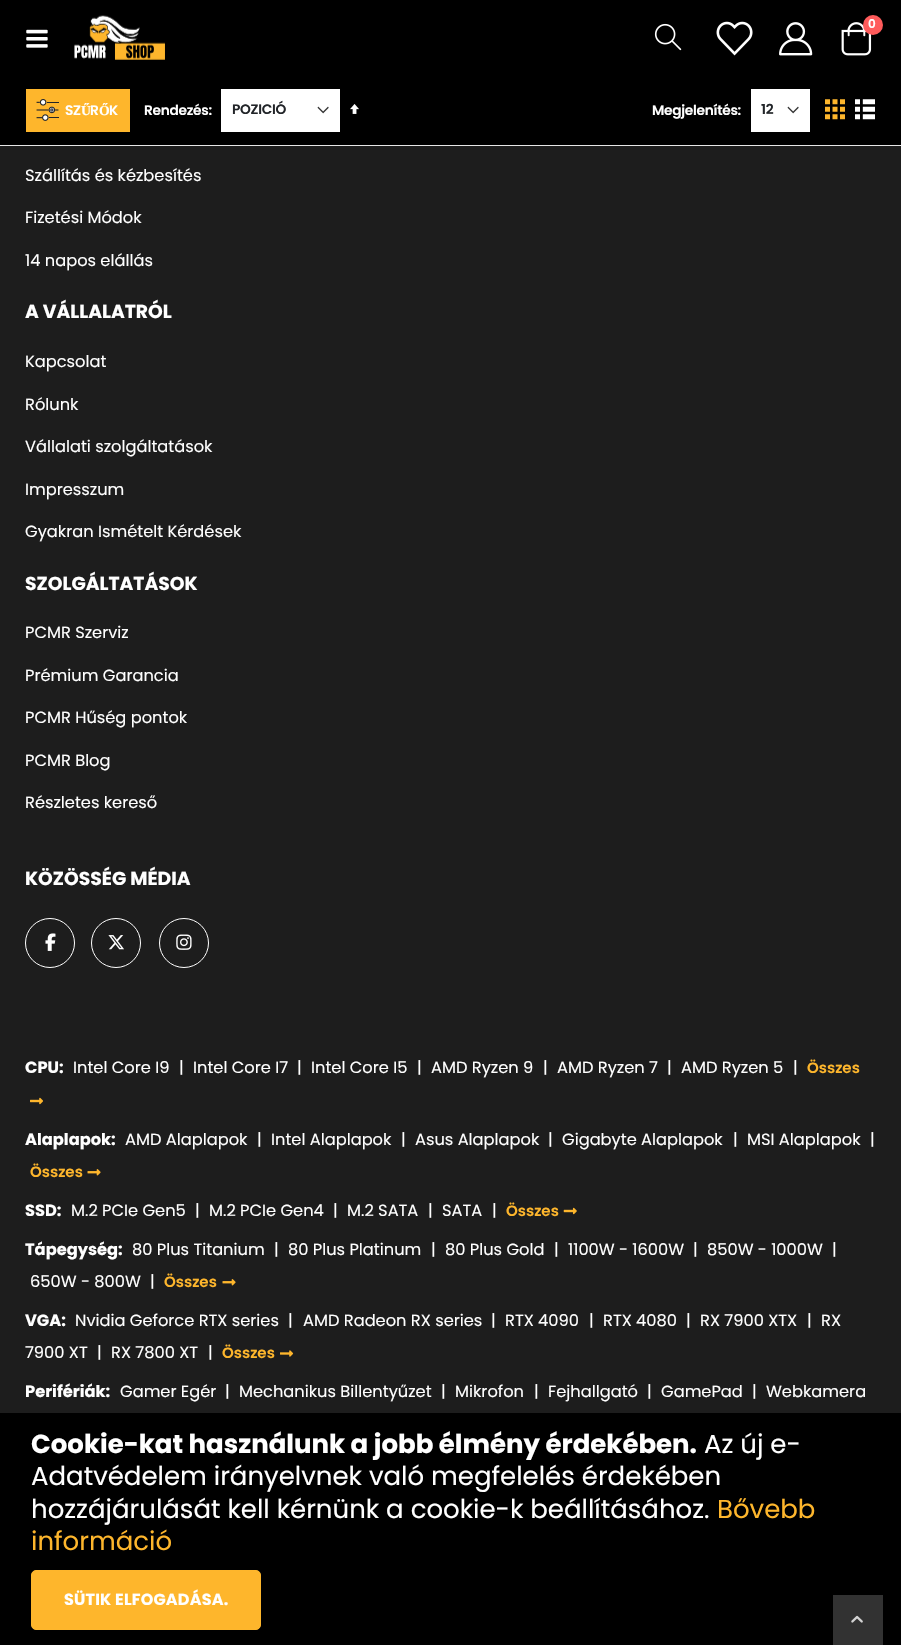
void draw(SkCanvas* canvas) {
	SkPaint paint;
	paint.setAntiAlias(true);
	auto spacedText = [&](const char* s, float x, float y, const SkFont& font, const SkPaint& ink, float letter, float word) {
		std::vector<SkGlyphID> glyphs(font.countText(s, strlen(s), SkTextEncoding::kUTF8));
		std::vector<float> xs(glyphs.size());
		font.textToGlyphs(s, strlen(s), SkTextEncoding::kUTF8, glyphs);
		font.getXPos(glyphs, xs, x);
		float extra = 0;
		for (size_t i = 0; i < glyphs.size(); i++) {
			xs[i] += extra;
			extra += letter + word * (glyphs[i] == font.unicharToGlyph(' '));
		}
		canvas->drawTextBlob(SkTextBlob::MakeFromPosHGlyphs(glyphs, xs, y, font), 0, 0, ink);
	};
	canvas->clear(0xff1d1d1d);
	paint.setColor(0xff000000);
	canvas->drawRect(SkRect::MakeXYWH(0, 0, 901, 145), paint);
	canvas->drawImageRect(SkImages::DeferredFromEncodedData(SkData::MakeFromFileName("img1.png")), SkRect::MakeXYWH(26, 29, 22, 19), SkSamplingOptions());
	canvas->drawImageRect(SkImages::DeferredFromEncodedData(SkData::MakeFromFileName("img2.png")), SkRect::MakeXYWH(74, 15, 91, 45), SkSamplingOptions());
	canvas->drawImageRect(SkImages::DeferredFromEncodedData(SkData::MakeFromFileName("img3.png")), SkRect::MakeXYWH(654, 23, 28, 28), SkSamplingOptions());
	canvas->drawImageRect(SkImages::DeferredFromEncodedData(SkData::MakeFromFileName("img4.png")), SkRect::MakeXYWH(716, 21, 37, 35), SkSamplingOptions());
	canvas->drawImageRect(SkImages::DeferredFromEncodedData(SkData::MakeFromFileName("img5.png")), SkRect::MakeXYWH(779, 22, 34, 34), SkSamplingOptions());
	canvas->drawImageRect(SkImages::DeferredFromEncodedData(SkData::MakeFromFileName("img6.png")), SkRect::MakeXYWH(841, 22, 31, 34), SkSamplingOptions());
	paint.setColor(0xffff5b5b);
	canvas->drawCircle(873, 25, 10, paint);
	SkFont f1(fontMgr->matchFamilyStyle("Poppins", SkFontStyle(600, SkFontStyle::kNormal_Width, SkFontStyle::kUpright_Slant)), 12);
	f1.setSubpixel(true);
	paint.setColor(0xffffffff);
	canvas->drawString("0", 868, 28, f1, paint);
	paint.setColor(0xffe7e7e7);
	canvas->drawRect(SkRect::MakeXYWH(0, 145, 901, 1), paint);
	paint.setColor(0xfffeb62c);
	canvas->drawRect(SkRect::MakeXYWH(26, 89, 104, 43), paint);
	canvas->drawImageRect(SkImages::DeferredFromEncodedData(SkData::MakeFromFileName("img7.png")), SkRect::MakeXYWH(36, 99, 23, 22), SkSamplingOptions());
	SkFont f2(fontMgr->matchFamilyStyle("Poppins", SkFontStyle(600, SkFontStyle::kNormal_Width, SkFontStyle::kUpright_Slant)), 13.75);
	f2.setSubpixel(true);
	paint.setColor(0xffffffff);
	spacedText("SZ", 65, 115, f2, paint, -0.3, 0);
	SkFont f3(fontMgr->matchFamilyStyle("Liberation Serif", SkFontStyle::Bold()), 13.75);
	f3.setSubpixel(true);
	spacedText("Ű", 81, 115, f3, paint, -0.3, 0);
	spacedText("R", 90, 115, f2, paint, -0.3, 0);
	spacedText("Ő", 99, 115, f3, paint, -0.3, 0);
	spacedText("K", 109, 115, f2, paint, -0.3, 0);
	spacedText("Rendezés:", 144, 115, f2, paint, -0.3, 0);
	canvas->drawRect(SkRect::MakeXYWH(221, 89, 119, 43), paint);
	canvas->drawImageRect(SkImages::DeferredFromEncodedData(SkData::MakeFromFileName("img8.png")), SkRect::MakeXYWH(317, 106, 12, 8), SkSamplingOptions());
	paint.setColor(0xff222529);
	spacedText("POZICIÓ", 232, 114, f2, paint, -0.3, 0);
	canvas->drawImageRect(SkImages::DeferredFromEncodedData(SkData::MakeFromFileName("img9.png")), SkRect::MakeXYWH(350, 104, 9, 10), SkSamplingOptions());
	paint.setColor(0xffffffff);
	spacedText("Megjelenítés:", 652, 115, f2, paint, -0.3, 0);
	canvas->drawRect(SkRect::MakeXYWH(751, 89, 59, 43), paint);
	canvas->drawImageRect(SkImages::DeferredFromEncodedData(SkData::MakeFromFileName("img8.png")), SkRect::MakeXYWH(787, 106, 12, 8), SkSamplingOptions());
	paint.setColor(0xff222529);
	spacedText("12", 761, 114, f2, paint, -0.3, 0);
	canvas->drawImageRect(SkImages::DeferredFromEncodedData(SkData::MakeFromFileName("img10.png")), SkRect::MakeXYWH(825, 99, 20, 21), SkSamplingOptions());
	canvas->drawImageRect(SkImages::DeferredFromEncodedData(SkData::MakeFromFileName("img11.png")), SkRect::MakeXYWH(855, 99, 20, 21), SkSamplingOptions());
	SkFont f4(fontMgr->matchFamilyStyle("Poppins", SkFontStyle::Normal()), 16.25);
	f4.setSubpixel(true);
	paint.setColor(0xffffffff);
	canvas->drawString("Szállítás és kézbesítés", 25, 181, f4, paint);
	canvas->drawString("Fizetési Módok", 25, 223, f4, paint);
	canvas->drawString("14 napos elállás", 25, 266, f4, paint);
	SkFont f5(fontMgr->matchFamilyStyle("Poppins", SkFontStyle::Bold()), 18.75);
	f5.setSubpixel(true);
	canvas->drawString("A VÁLLALATRÓL", 25, 318, f5, paint);
	canvas->drawString("Kapcsolat", 25, 367, f4, paint);
	canvas->drawString("Rólunk", 25, 410, f4, paint);
	canvas->drawString("Vállalati szolgáltatások", 25, 452, f4, paint);
	canvas->drawString("Impresszum", 25, 495, f4, paint);
	canvas->drawString("Gyakran Ismételt Kérdések", 25, 537, f4, paint);
	canvas->drawString("SZOLGÁLTATÁSOK", 25, 590, f5, paint);
	canvas->drawString("PCMR Szerviz", 25, 638, f4, paint);
	canvas->drawString("Prémium Garancia", 25, 681, f4, paint);
	canvas->drawString("PCMR Hűség pontok", 25, 723, f4, paint);
	canvas->drawString("PCMR Blog", 25, 766, f4, paint);
	canvas->drawString("Részletes kereső", 25, 808, f4, paint);
	canvas->drawString("KÖZÖSSÉG MÉDIA", 25, 885, f5, paint);
	paint.setStroke(true);
	paint.setStrokeWidth(1);
	canvas->drawCircle(50, 943, 24.5, paint);
	canvas->drawImageRect(SkImages::DeferredFromEncodedData(SkData::MakeFromFileName("img12.png")), SkRect::MakeXYWH(45, 933, 11, 18), SkSamplingOptions());
	canvas->drawCircle(116, 943, 24.5, paint);
	canvas->drawImageRect(SkImages::DeferredFromEncodedData(SkData::MakeFromFileName("img13.png")), SkRect::MakeXYWH(108, 935, 16, 15), SkSamplingOptions());
	canvas->drawCircle(184, 943, 24.5, paint);
	canvas->drawImageRect(SkImages::DeferredFromEncodedData(SkData::MakeFromFileName("img14.png")), SkRect::MakeXYWH(176, 934, 16, 16), SkSamplingOptions());
	SkFont f6(fontMgr->matchFamilyStyle("Poppins", SkFontStyle::Bold()), 16.25);
	f6.setSubpixel(true);
	paint.setStroke(false);
	canvas->drawString("CPU:", 25, 1073, f6, paint);
	canvas->drawString("Intel Core I9", 73, 1073, f4, paint);
	canvas->drawString("|", 179, 1073, f4, paint);
	canvas->drawString("Intel Core I7", 193, 1073, f4, paint);
	canvas->drawString("|", 297, 1073, f4, paint);
	canvas->drawString("Intel Core I5", 311, 1073, f4, paint);
	canvas->drawString("|", 417, 1073, f4, paint);
	canvas->drawString("AMD Ryzen 9", 431, 1073, f4, paint);
	canvas->drawString("|", 543, 1073, f4, paint);
	canvas->drawString("AMD Ryzen 7", 557, 1073, f4, paint);
	canvas->drawString("|", 667, 1073, f4, paint);
	canvas->drawString("AMD Ryzen 5", 681, 1073, f4, paint);
	canvas->drawString("|", 793, 1073, f4, paint);
	SkFont f7(fontMgr->matchFamilyStyle("Poppins", SkFontStyle(600, SkFontStyle::kNormal_Width, SkFontStyle::kUpright_Slant)), 15);
	f7.setSubpixel(true);
	paint.setColor(0xfffeb62c);
	canvas->drawString("Összes", 807, 1073, f7, paint);
	canvas->drawImageRect(SkImages::DeferredFromEncodedData(SkData::MakeFromFileName("img15.png")), SkRect::MakeXYWH(30, 1097, 13, 8), SkSamplingOptions());
	paint.setColor(0xffffffff);
	canvas->drawString("Alaplapok:", 25, 1145, f6, paint);
	canvas->drawString("AMD Alaplapok", 125, 1145, f4, paint);
	canvas->drawString("|", 257, 1145, f4, paint);
	canvas->drawString("Intel Alaplapok", 271, 1145, f4, paint);
	canvas->drawString("|", 401, 1145, f4, paint);
	canvas->drawString("Asus Alaplapok", 415, 1145, f4, paint);
	canvas->drawString("|", 548, 1145, f4, paint);
	canvas->drawString("Gigabyte Alaplapok", 562, 1145, f4, paint);
	canvas->drawString("|", 733, 1145, f4, paint);
	canvas->drawString("MSI Alaplapok", 747, 1145, f4, paint);
	canvas->drawString("|", 870, 1145, f4, paint);
	paint.setColor(0xfffeb62c);
	canvas->drawString("Összes", 30, 1177, f7, paint);
	canvas->drawImageRect(SkImages::DeferredFromEncodedData(SkData::MakeFromFileName("img16.png")), SkRect::MakeXYWH(87, 1169, 14, 7), SkSamplingOptions());
	paint.setColor(0xffffffff);
	canvas->drawString("SSD:", 25, 1216, f6, paint);
	canvas->drawString("M.2 PCIe Gen5", 71, 1216, f4, paint);
	canvas->drawString("|", 195, 1216, f4, paint);
	canvas->drawString("M.2 PCIe Gen4", 209, 1216, f4, paint);
	canvas->drawString("|", 333, 1216, f4, paint);
	canvas->drawString("M.2 SATA", 347, 1216, f4, paint);
	canvas->drawString("|", 428, 1216, f4, paint);
	canvas->drawString("SATA", 442, 1216, f4, paint);
	canvas->drawString("|", 492, 1216, f4, paint);
	paint.setColor(0xfffeb62c);
	canvas->drawString("Összes", 506, 1216, f7, paint);
	canvas->drawImageRect(SkImages::DeferredFromEncodedData(SkData::MakeFromFileName("img17.png")), SkRect::MakeXYWH(563, 1207, 14, 8), SkSamplingOptions());
	paint.setColor(0xffffffff);
	canvas->drawString("Tápegység:", 25, 1255, f6, paint);
	canvas->drawString("80 Plus Titanium", 132, 1255, f4, paint);
	canvas->drawString("|", 274, 1255, f4, paint);
	canvas->drawString("80 Plus Platinum", 288, 1255, f4, paint);
	canvas->drawString("|", 431, 1255, f4, paint);
	canvas->drawString("80 Plus Gold", 445, 1255, f4, paint);
	canvas->drawString("|", 554, 1255, f4, paint);
	canvas->drawString("1100W - 1600W", 568, 1255, f4, paint);
	canvas->drawString("|", 693, 1255, f4, paint);
	canvas->drawString("850W - 1000W", 707, 1255, f4, paint);
	canvas->drawString("|", 832, 1255, f4, paint);
	canvas->drawString("650W - 800W", 30, 1287, f4, paint);
	canvas->drawString("|", 150, 1287, f4, paint);
	paint.setColor(0xfffeb62c);
	canvas->drawString("Összes", 164, 1287, f7, paint);
	canvas->drawImageRect(SkImages::DeferredFromEncodedData(SkData::MakeFromFileName("img16.png")), SkRect::MakeXYWH(222, 1279, 14, 7), SkSamplingOptions());
	paint.setColor(0xffffffff);
	canvas->drawString("VGA:", 25, 1326, f6, paint);
	canvas->drawString("Nvidia Geforce RTX series", 75, 1326, f4, paint);
	canvas->drawString("|", 288, 1326, f4, paint);
	canvas->drawString("AMD Radeon RX series", 303, 1326, f4, paint);
	canvas->drawString("|", 491, 1326, f4, paint);
	canvas->drawString("RTX 4090", 505, 1326, f4, paint);
	canvas->drawString("|", 589, 1326, f4, paint);
	canvas->drawString("RTX 4080", 603, 1326, f4, paint);
	canvas->drawString("|", 686, 1326, f4, paint);
	canvas->drawString("RX 7900 XTX", 700, 1326, f4, paint);
	canvas->drawString("|", 807, 1326, f4, paint);
	canvas->drawString("RX", 821, 1326, f4, paint);
	canvas->drawString("7900 XT", 25, 1358, f4, paint);
	canvas->drawString("|", 97, 1358, f4, paint);
	canvas->drawString("RX 7800 XT", 111, 1358, f4, paint);
	canvas->drawString("|", 208, 1358, f4, paint);
	paint.setColor(0xfffeb62c);
	canvas->drawString("Összes", 222, 1358, f7, paint);
	canvas->drawImageRect(SkImages::DeferredFromEncodedData(SkData::MakeFromFileName("img18.png")), SkRect::MakeXYWH(280, 1350, 14, 7), SkSamplingOptions());
	paint.setColor(0xffffffff);
	canvas->drawString("Perifériák:", 25, 1397, f6, paint);
	canvas->drawString("Gamer Egér", 120, 1397, f4, paint);
	canvas->drawString("|", 225, 1397, f4, paint);
	canvas->drawString("Mechanikus Billentyűzet", 239, 1397, f4, paint);
	canvas->drawString("|", 441, 1397, f4, paint);
	canvas->drawString("Mikrofon", 455, 1397, f4, paint);
	canvas->drawString("|", 534, 1397, f4, paint);
	canvas->drawString("Fejhallgató", 548, 1397, f4, paint);
	canvas->drawString("|", 647, 1397, f4, paint);
	canvas->drawString("GamePad", 661, 1397, f4, paint);
	canvas->drawString("|", 752, 1397, f4, paint);
	canvas->drawString("Webkamera", 766, 1397, f4, paint);
	paint.setColor(0xff000000);
	canvas->drawRect(SkRect::MakeXYWH(0, 1413, 901, 232), paint);
	paint.setColor(0xff323232);
	canvas->drawRect(SkRect::MakeXYWH(833, 1595, 50, 50), paint);
	canvas->drawImageRect(SkImages::DeferredFromEncodedData(SkData::MakeFromFileName("img19.png")), SkRect::MakeXYWH(851, 1615, 12, 8), SkSamplingOptions());
	SkFont f8(fontMgr->matchFamilyStyle("Poppins", SkFontStyle::Bold()), 26);
	f8.setSubpixel(true);
	paint.setColor(0xffffffff);
	canvas->drawString("Cookie-kat használunk a jobb élmény érdekében.", 31, 1453, f8, paint);
	SkFont f9(fontMgr->matchFamilyStyle("Poppins", SkFontStyle::Normal()), 26);
	f9.setSubpixel(true);
	canvas->drawString("Az új e-", 704, 1453, f9, paint);
	canvas->drawString("Adatvédelem irányelvnek való megfelelés érdekében", 31, 1485, f9, paint);
	canvas->drawString("hozzájárulását kell kérnünk a cookie-k beállításához.", 31, 1518, f9, paint);
	paint.setColor(0xfffeb62c);
	canvas->drawString("Bővebb", 717, 1518, f9, paint);
	canvas->drawString("információ", 31, 1550, f9, paint);
	canvas->drawRoundRect(SkRect::MakeXYWH(31.5, 1570.5, 229, 59), 4.5, 4.5, paint);
	paint.setStroke(true);
	canvas->drawRoundRect(SkRect::MakeXYWH(31.5, 1570.5, 229, 59), 4.5, 4.5, paint);
	SkFont f10(fontMgr->matchFamilyStyle("Poppins", SkFontStyle::Bold()), 16);
	f10.setSubpixel(true);
	paint.setStroke(false);
	paint.setColor(0xffffffff);
	spacedText("SÜTIK ELFOGADÁSA.", 64, 1605, f10, paint, 0.2, 0);
}
